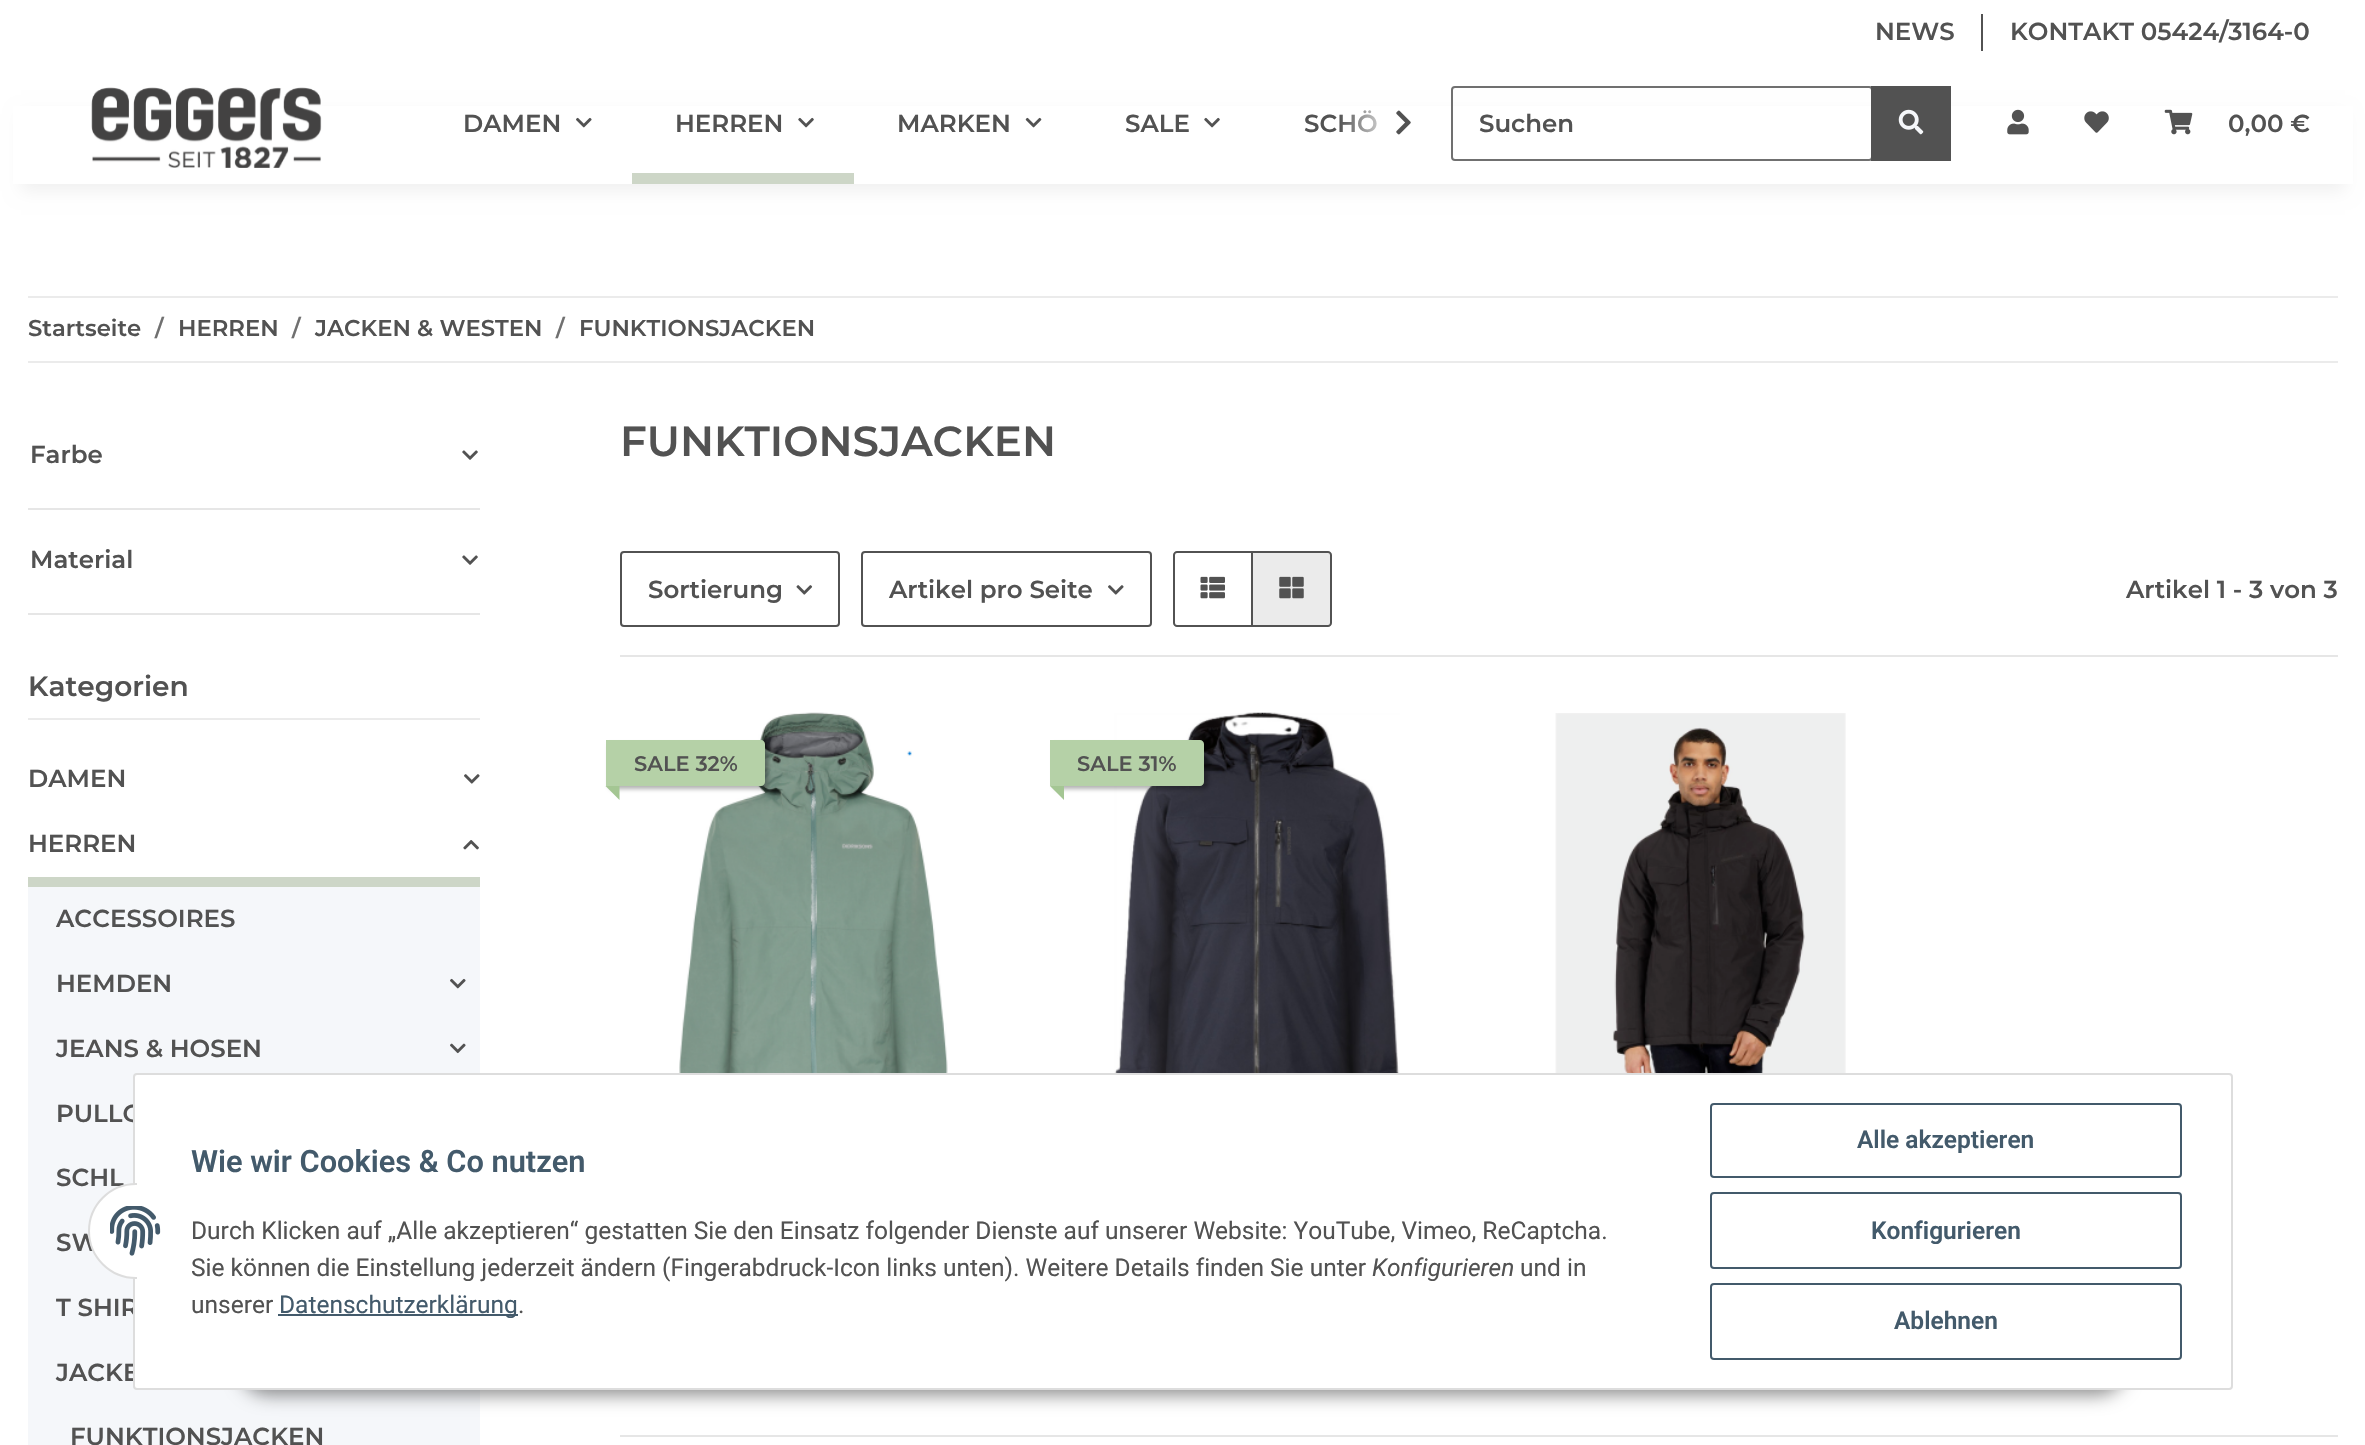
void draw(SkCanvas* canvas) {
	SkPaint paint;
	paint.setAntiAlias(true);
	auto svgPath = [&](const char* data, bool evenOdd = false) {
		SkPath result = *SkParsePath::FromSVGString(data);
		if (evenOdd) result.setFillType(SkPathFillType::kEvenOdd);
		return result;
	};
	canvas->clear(0xffffffff);
	SkFont f1(fontMgr->matchFamilyStyle("Montserrat", SkFontStyle(600, SkFontStyle::kNormal_Width, SkFontStyle::kUpright_Slant)), 24.5);
	f1.setSubpixel(true);
	paint.setColor(0xff525252);
	canvas->drawString("NEWS", 1875, 40, f1, paint);
	canvas->drawRect(SkRect::MakeXYWH(1981, 14, 2, 37), paint);
	canvas->drawString("KONTAKT 05424/3164-0", 2010, 40, f1, paint);
	paint.setColor(0x0f000000);
	paint.setMaskFilter(SkMaskFilter::MakeBlur(kNormal_SkBlurStyle, 8));
	canvas->drawRect(SkRect::MakeXYWH(21, 114, 2324, 77), paint);
	paint.setMaskFilter(nullptr);
	paint.setColor(0xffffffff);
	canvas->drawRect(SkRect::MakeXYWH(13, 106, 2340, 78), paint);
	canvas->drawImageRect(SkImages::DeferredFromEncodedData(SkData::MakeFromFileName("img1.png")), SkRect::MakeXYWH(91, 87, 231, 81), SkSamplingOptions());
	paint.setColor(0xff525252);
	canvas->drawString("DAMEN", 463, 132, f1, paint);
	canvas->drawImageRect(SkImages::DeferredFromEncodedData(SkData::MakeFromFileName("img2.png")), SkRect::MakeXYWH(576, 117, 16, 11), SkSamplingOptions());
	canvas->drawString("HERREN", 675, 132, f1, paint);
	canvas->drawImageRect(SkImages::DeferredFromEncodedData(SkData::MakeFromFileName("img3.png")), SkRect::MakeXYWH(798, 117, 16, 11), SkSamplingOptions());
	paint.setColor(0xffcdd6c7);
	canvas->drawRect(SkRect::MakeXYWH(632, 173, 222, 11), paint);
	paint.setColor(0xff525252);
	canvas->drawString("MARKEN", 897, 132, f1, paint);
	canvas->drawImageRect(SkImages::DeferredFromEncodedData(SkData::MakeFromFileName("img4.png")), SkRect::MakeXYWH(1025, 117, 17, 11), SkSamplingOptions());
	canvas->drawString("SALE", 1125, 132, f1, paint);
	canvas->drawImageRect(SkImages::DeferredFromEncodedData(SkData::MakeFromFileName("img3.png")), SkRect::MakeXYWH(1204, 117, 16, 11), SkSamplingOptions());
	canvas->drawString("SCHÖ", 1304, 132, f1, paint);
	{
		const SkColor colors[] = {0x03ffffff, 0xffffffff};
		const float stops[] = {0, 0.7};
		const SkPoint ends[] = {{1339, 124}, {1423, 124}};
		paint.setShader(SkGradientShader::MakeLinear(ends, colors, stops, 2, SkTileMode::kClamp));
		paint.setAlpha(255);
	}
	canvas->drawRect(SkRect::MakeXYWH(1340, 110, 37, 23), paint);
	canvas->drawImageRect(SkImages::DeferredFromEncodedData(SkData::MakeFromFileName("img5.png")), SkRect::MakeXYWH(1396, 110, 15, 25), SkSamplingOptions());
	paint.setStroke(true);
	paint.setStrokeWidth(2);
	paint.setShader(nullptr);
	paint.setColor(0xff707070);
	canvas->drawRoundRect(SkRect::MakeXYWH(1452, 87, 420, 73), 3, 3, paint);
	paint.setStroke(false);
	paint.setColor(0xff525252);
	canvas->drawString("Suchen", 1479, 132, f1, paint);
	canvas->drawRect(SkRect::MakeXYWH(1871, 86, 80, 75), paint);
	canvas->drawImageRect(SkImages::DeferredFromEncodedData(SkData::MakeFromFileName("img6.png")), SkRect::MakeXYWH(1898, 109, 26, 26), SkSamplingOptions());
	canvas->drawImageRect(SkImages::DeferredFromEncodedData(SkData::MakeFromFileName("img7.png")), SkRect::MakeXYWH(2007, 109, 22, 26), SkSamplingOptions());
	canvas->drawImageRect(SkImages::DeferredFromEncodedData(SkData::MakeFromFileName("img8.png")), SkRect::MakeXYWH(2084, 111, 25, 22), SkSamplingOptions());
	canvas->drawImageRect(SkImages::DeferredFromEncodedData(SkData::MakeFromFileName("img9.png")), SkRect::MakeXYWH(2164, 109, 29, 26), SkSamplingOptions());
	canvas->drawString("0,00 €", 2228, 132, f1, paint);
	paint.setColor(0xffebebeb);
	canvas->drawRect(SkRect::MakeXYWH(28, 296, 2310, 2), paint);
	canvas->drawRect(SkRect::MakeXYWH(28, 361, 2310, 2), paint);
	SkFont f2(fontMgr->matchFamilyStyle("Montserrat", SkFontStyle(600, SkFontStyle::kNormal_Width, SkFontStyle::kUpright_Slant)), 22.75);
	f2.setSubpixel(true);
	paint.setColor(0xff525252);
	canvas->drawString("Startseite", 28, 336, f2, paint);
	paint.setColor(0xff707070);
	canvas->drawString("/", 155, 336, f2, paint);
	paint.setColor(0xff525252);
	canvas->drawString("HERREN", 178, 336, f2, paint);
	paint.setColor(0xff707070);
	canvas->drawString("/", 292, 336, f2, paint);
	paint.setColor(0xff525252);
	canvas->drawString("JACKEN & WESTEN", 315, 336, f2, paint);
	paint.setColor(0xff707070);
	canvas->drawString("/", 556, 336, f2, paint);
	paint.setColor(0xff525252);
	canvas->drawString("FUNKTIONSJACKEN", 579, 336, f2, paint);
	canvas->drawString("Farbe", 30, 463, f1, paint);
	canvas->drawImageRect(SkImages::DeferredFromEncodedData(SkData::MakeFromFileName("img10.png")), SkRect::MakeXYWH(462, 450, 16, 10), SkSamplingOptions());
	paint.setColor(0xffe6e6e6);
	canvas->drawRect(SkRect::MakeXYWH(28, 508, 452, 2), paint);
	paint.setColor(0xff525252);
	canvas->drawString("Material", 30, 568, f1, paint);
	canvas->drawImageRect(SkImages::DeferredFromEncodedData(SkData::MakeFromFileName("img10.png")), SkRect::MakeXYWH(462, 555, 16, 10), SkSamplingOptions());
	paint.setColor(0xffe6e6e6);
	canvas->drawRect(SkRect::MakeXYWH(28, 613, 452, 2), paint);
	paint.setColor(0xffebebeb);
	canvas->drawRect(SkRect::MakeXYWH(28, 718, 452, 2), paint);
	SkFont f3(fontMgr->matchFamilyStyle("Montserrat", SkFontStyle(600, SkFontStyle::kNormal_Width, SkFontStyle::kUpright_Slant)), 28);
	f3.setSubpixel(true);
	paint.setColor(0xff525252);
	canvas->drawString("Kategorien", 28, 696, f3, paint);
	canvas->drawString("DAMEN", 28, 787, f1, paint);
	canvas->drawImageRect(SkImages::DeferredFromEncodedData(SkData::MakeFromFileName("img11.png")), SkRect::MakeXYWH(464, 774, 16, 10), SkSamplingOptions());
	paint.setColor(0xffcdd6c7);
	canvas->drawRect(SkRect::MakeXYWH(28, 877, 452, 10), paint);
	paint.setColor(0xff525252);
	canvas->drawString("HERREN", 28, 852, f1, paint);
	canvas->drawImageRect(SkImages::DeferredFromEncodedData(SkData::MakeFromFileName("img12.png")), SkRect::MakeXYWH(463, 840, 16, 10), SkSamplingOptions());
	paint.setColor(0xfff5f7fa);
	canvas->drawRect(SkRect::MakeXYWH(28, 887, 452, 558), paint);
	paint.setColor(0xff525252);
	canvas->drawString("ACCESSOIRES", 56, 927, f1, paint);
	canvas->drawString("HEMDEN", 56, 992, f1, paint);
	canvas->drawImageRect(SkImages::DeferredFromEncodedData(SkData::MakeFromFileName("img13.png")), SkRect::MakeXYWH(450, 978, 16, 11), SkSamplingOptions());
	canvas->drawString("JEANS & HOSEN", 56, 1057, f1, paint);
	canvas->drawImageRect(SkImages::DeferredFromEncodedData(SkData::MakeFromFileName("img14.png")), SkRect::MakeXYWH(450, 1043, 16, 11), SkSamplingOptions());
	canvas->drawString("PULLO", 56, 1122, f1, paint);
	canvas->drawString("SCHL", 56, 1186, f1, paint);
	canvas->drawString("SW", 56, 1251, f1, paint);
	canvas->drawString("T SHIR", 56, 1316, f1, paint);
	canvas->drawString("JACKE", 56, 1381, f1, paint);
	canvas->drawString("FUNKTIONSJACKEN", 70, 1445, f1, paint);
	SkFont f4(fontMgr->matchFamilyStyle("Montserrat", SkFontStyle(600, SkFontStyle::kNormal_Width, SkFontStyle::kUpright_Slant)), 42);
	f4.setSubpixel(true);
	canvas->drawString("FUNKTIONSJACKEN", 620, 456, f4, paint);
	paint.setStroke(true);
	canvas->drawRoundRect(SkRect::MakeXYWH(621, 552, 218, 74), 3, 3, paint);
	paint.setStroke(false);
	canvas->drawString("Sortierung", 648, 598, f1, paint);
	canvas->drawImageRect(SkImages::DeferredFromEncodedData(SkData::MakeFromFileName("img15.png")), SkRect::MakeXYWH(796, 585, 17, 10), SkSamplingOptions());
	paint.setStroke(true);
	canvas->drawRoundRect(SkRect::MakeXYWH(862, 552, 289, 74), 3, 3, paint);
	paint.setStroke(false);
	canvas->drawString("Artikel pro Seite", 889, 598, f1, paint);
	canvas->drawImageRect(SkImages::DeferredFromEncodedData(SkData::MakeFromFileName("img11.png")), SkRect::MakeXYWH(1108, 585, 16, 10), SkSamplingOptions());
	paint.setStroke(true);
	canvas->drawPath(svgPath("M1177 552H1252V626H1177C1175.5 626 1174 624.5 1174 623V555C1174 553.5 1175.5 552 1177 552Z"), paint);
	canvas->drawImageRect(SkImages::DeferredFromEncodedData(SkData::MakeFromFileName("img16.png")), SkRect::MakeXYWH(1200, 576, 25, 23), SkSamplingOptions());
	paint.setStroke(false);
	paint.setColor(0xffebebeb);
	canvas->drawPath(svgPath("M1252 552H1328C1329.5 552 1331 553.5 1331 555V623C1331 624.5 1329.5 626 1328 626H1252Z"), paint);
	paint.setStroke(true);
	paint.setColor(0xff525252);
	canvas->drawPath(svgPath("M1252 552H1328C1329.5 552 1331 553.5 1331 555V623C1331 624.5 1329.5 626 1328 626H1252Z"), paint);
	canvas->drawImageRect(SkImages::DeferredFromEncodedData(SkData::MakeFromFileName("img17.png")), SkRect::MakeXYWH(1279, 576, 25, 23), SkSamplingOptions());
	paint.setStroke(false);
	canvas->drawString("Artikel 1 - 3 von 3", 2126, 598, f1, paint);
	paint.setColor(0xffe6e6e6);
	canvas->drawRect(SkRect::MakeXYWH(620, 655, 1718, 2), paint);
	canvas->drawImageRect(SkImages::DeferredFromEncodedData(SkData::MakeFromFileName("img18.png")), SkRect::MakeXYWH(679, 712, 269, 361), SkSamplingOptions());
	paint.setColor(0x4d000000);
	paint.setMaskFilter(SkMaskFilter::MakeBlur(kNormal_SkBlurStyle, 2));
	canvas->drawRoundRect(SkRect::MakeXYWH(609, 744, 159, 45), 4, 4, paint);
	paint.setMaskFilter(nullptr);
	paint.setColor(0xffb5d1a7);
	canvas->drawPath(svgPath("M606 740H761C763 740 765 742 765 744V782C765 784 763 786 761 786H606Z"), paint);
	SkFont f5(fontMgr->matchFamilyStyle("Montserrat", SkFontStyle(600, SkFontStyle::kNormal_Width, SkFontStyle::kUpright_Slant)), 21);
	f5.setSubpixel(true);
	paint.setColor(0xff525252);
	canvas->drawString("SALE 32%", 634, 771, f5, paint);
	paint.setColor(0xffa4c693);
	canvas->drawPath(svgPath("M619.5 786V800L605.5 786Z"), paint);
	canvas->drawImageRect(SkImages::DeferredFromEncodedData(SkData::MakeFromFileName("img19.png")), SkRect::MakeXYWH(1114, 712, 286, 361), SkSamplingOptions());
	paint.setColor(0x4d000000);
	paint.setMaskFilter(SkMaskFilter::MakeBlur(kNormal_SkBlurStyle, 2));
	canvas->drawRoundRect(SkRect::MakeXYWH(1054, 744, 154, 45), 4, 4, paint);
	paint.setMaskFilter(nullptr);
	paint.setColor(0xffb5d1a7);
	canvas->drawPath(svgPath("M1050 740H1200C1202 740 1204 742 1204 744V782C1204 784 1202 786 1200 786H1050Z"), paint);
	paint.setColor(0xff525252);
	canvas->drawString("SALE 31%", 1077, 771, f5, paint);
	paint.setColor(0xffa4c693);
	canvas->drawPath(svgPath("M1064 786V800L1050 786Z"), paint);
	canvas->drawImageRect(SkImages::DeferredFromEncodedData(SkData::MakeFromFileName("img20.png")), SkRect::MakeXYWH(1555, 713, 291, 360), SkSamplingOptions());
	paint.setColor(0xffe6e6e6);
	canvas->drawRect(SkRect::MakeXYWH(620, 1435, 1718, 2), paint);
	paint.setColor(0x73000000);
	paint.setMaskFilter(SkMaskFilter::MakeBlur(kNormal_SkBlurStyle, 9));
	canvas->drawRoundRect(SkRect::MakeXYWH(240, 1339, 1886, 56), 28, 28, paint);
	paint.setMaskFilter(nullptr);
	paint.setColor(0xffffffff);
	canvas->drawRoundRect(SkRect::MakeXYWH(134, 1074, 2098, 315), 3, 3, paint);
	paint.setStroke(true);
	paint.setColor(0xffdddddd);
	canvas->drawRoundRect(SkRect::MakeXYWH(134, 1074, 2098, 315), 3, 3, paint);
	paint.setStroke(false);
	paint.setColor(0xffffffff);
	canvas->drawCircle(136, 1231, 47, paint);
	paint.setStroke(true);
	paint.setColor(0xffdddddd);
	canvas->drawCircle(136, 1231, 47, paint);
	paint.setStroke(false);
	paint.setColor(0xffffffff);
	canvas->drawRect(SkRect::MakeXYWH(137, 1183, 47, 96), paint);
	canvas->drawImageRect(SkImages::DeferredFromEncodedData(SkData::MakeFromFileName("img21.png")), SkRect::MakeXYWH(110, 1206, 51, 50), SkSamplingOptions());
	SkFont f6(fontMgr->matchFamilyStyle("Roboto", SkFontStyle(600, SkFontStyle::kNormal_Width, SkFontStyle::kUpright_Slant)), 30.75);
	f6.setSubpixel(true);
	paint.setColor(0xff435a6b);
	canvas->drawString("Wie wir Cookies & Co nutzen", 191, 1172, f6, paint);
	SkFont f7(fontMgr->matchFamilyStyle("Roboto", SkFontStyle::Normal()), 24.5);
	f7.setSubpixel(true);
	paint.setColor(0xff525252);
	canvas->drawString("Durch Klicken auf „Alle akzeptieren“ gestatten Sie den Einsatz folgender Dienste auf unserer Website: YouTube, Vimeo, ReCaptcha.", 191, 1239, f7, paint);
	canvas->drawString("Sie können die Einstellung jederzeit ändern (Fingerabdruck-Icon links unten). Weitere Details finden Sie unter", 191, 1276, f7, paint);
	SkFont f8(fontMgr->matchFamilyStyle("Roboto", SkFontStyle::Italic()), 24.5);
	f8.setSubpixel(true);
	canvas->drawString("Konfigurieren", 1372, 1276, f8, paint);
	canvas->drawString("und in", 1520, 1276, f7, paint);
	canvas->drawString("unserer", 191, 1313, f7, paint);
	paint.setColor(0xff435a6b);
	canvas->drawRect(SkRect::MakeXYWH(278, 1314, 240, 2), paint);
	canvas->drawString("Datenschutzerklärung", 279, 1313, f7, paint);
	paint.setColor(0xff525252);
	canvas->drawString(".", 518, 1313, f7, paint);
	paint.setStroke(true);
	paint.setColor(0xff435a6b);
	canvas->drawRoundRect(SkRect::MakeXYWH(1711, 1104, 470, 73), 3, 3, paint);
	SkFont f9(fontMgr->matchFamilyStyle("Roboto", SkFontStyle(600, SkFontStyle::kNormal_Width, SkFontStyle::kUpright_Slant)), 24.5);
	f9.setSubpixel(true);
	paint.setStroke(false);
	canvas->drawString("Alle akzeptieren", 1857, 1148, f9, paint);
	paint.setStroke(true);
	canvas->drawRoundRect(SkRect::MakeXYWH(1711, 1193, 470, 75), 3, 3, paint);
	paint.setStroke(false);
	canvas->drawString("Konfigurieren", 1871, 1239, f9, paint);
	paint.setStroke(true);
	canvas->drawRoundRect(SkRect::MakeXYWH(1711, 1284, 470, 75), 3, 3, paint);
	paint.setStroke(false);
	canvas->drawString("Ablehnen", 1894, 1329, f9, paint);
}
